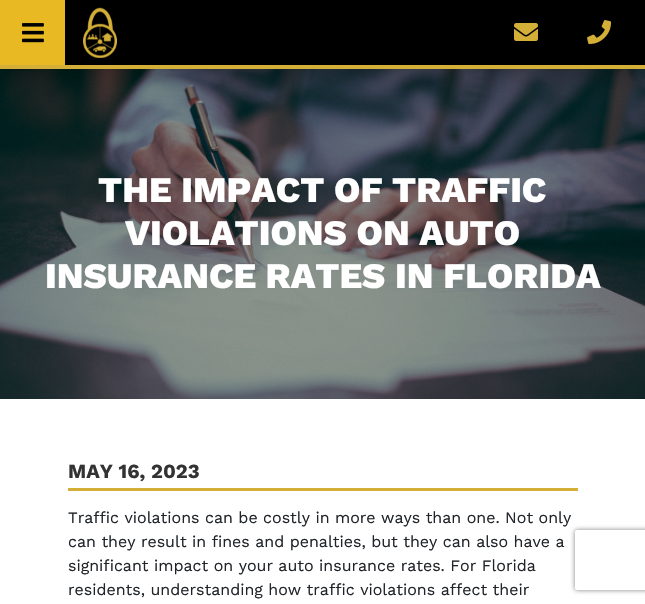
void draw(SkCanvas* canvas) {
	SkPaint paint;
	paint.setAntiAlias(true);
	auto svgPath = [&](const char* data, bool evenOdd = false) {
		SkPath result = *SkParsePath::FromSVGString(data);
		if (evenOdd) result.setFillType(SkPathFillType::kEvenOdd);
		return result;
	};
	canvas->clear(0xffffffff);
	canvas->drawImageRect(SkImages::DeferredFromEncodedData(SkData::MakeFromFileName("img5.png")), SkRect::MakeXYWH(0, 69, 645, 330), SkSamplingOptions());
	paint.setColor(0x4d000000);
	paint.setMaskFilter(SkMaskFilter::MakeBlur(kNormal_SkBlurStyle, 12.5));
	canvas->drawRect(SkRect::MakeXYWH(-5, -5, 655, 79), paint);
	paint.setMaskFilter(nullptr);
	paint.setColor(0xffd4af37);
	canvas->drawRect(SkRect::MakeXYWH(0, 65, 645, 4), paint);
	paint.setColor(0xff000000);
	canvas->drawRect(SkRect::MakeXYWH(65, 0, 580, 65), paint);
	paint.setColor(0xffe8b923);
	canvas->drawRect(SkRect::MakeXYWH(0, 0, 65, 65), paint);
	canvas->drawImageRect(SkImages::DeferredFromEncodedData(SkData::MakeFromFileName("img1.png")), SkRect::MakeXYWH(22, 23, 22, 20), SkSamplingOptions());
	canvas->drawImageRect(SkImages::DeferredFromEncodedData(SkData::MakeFromFileName("img2.png")), SkRect::MakeXYWH(83, 7, 34, 51), SkSamplingOptions());
	canvas->drawImageRect(SkImages::DeferredFromEncodedData(SkData::MakeFromFileName("img3.png")), SkRect::MakeXYWH(514, 23, 24, 18), SkSamplingOptions());
	canvas->drawImageRect(SkImages::DeferredFromEncodedData(SkData::MakeFromFileName("img4.png")), SkRect::MakeXYWH(587, 20, 25, 24), SkSamplingOptions());
	SkFont f1(fontMgr->matchFamilyStyle("Work Sans", SkFontStyle(800, SkFontStyle::kNormal_Width, SkFontStyle::kUpright_Slant)), 36);
	f1.setSubpixel(true);
	paint.setColor(0xffffffff);
	canvas->drawString("THE IMPACT OF TRAFFIC", 98, 202, f1, paint);
	canvas->drawString("VIOLATIONS ON AUTO", 125, 245, f1, paint);
	canvas->drawString("INSURANCE RATES IN FLORIDA", 45, 288, f1, paint);
	paint.setColor(0xffd4af37);
	canvas->drawRect(SkRect::MakeXYWH(68, 488, 510, 3), paint);
	SkFont f2(fontMgr->matchFamilyStyle("Work Sans", SkFontStyle::Bold()), 20);
	f2.setSubpixel(true);
	paint.setColor(0xff333333);
	canvas->drawString("MAY 16, 2023", 68, 478, f2, paint);
	SkFont f3(fontMgr->matchFamilyStyle("Work Sans", SkFontStyle::Normal()), 16);
	f3.setSubpixel(true);
	paint.setColor(0xff212529);
	canvas->drawString("Traffic violations can be costly in more ways than one. Not only", 68, 523, f3, paint);
	canvas->drawString("can they result in fines and penalties, but they can also have a", 68, 547, f3, paint);
	canvas->drawString("significant impact on your auto insurance rates. For Florida", 68, 571, f3, paint);
	canvas->drawString("residents, understanding how traffic violations affect their", 68, 595, f3, paint);
	canvas->save();
	canvas->clipPath(svgPath("M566 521H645V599H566ZM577 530H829C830 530 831 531 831 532V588C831 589 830 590 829 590H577C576 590 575 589 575 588V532C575 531 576 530 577 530Z", true), true);
	paint.setColor(0xff808080);
	paint.setMaskFilter(SkMaskFilter::MakeBlur(kNormal_SkBlurStyle, 2.5));
	canvas->drawRoundRect(SkRect::MakeXYWH(575, 530, 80, 60), 2, 2, paint);
	paint.setMaskFilter(nullptr);
	canvas->restore();
}
